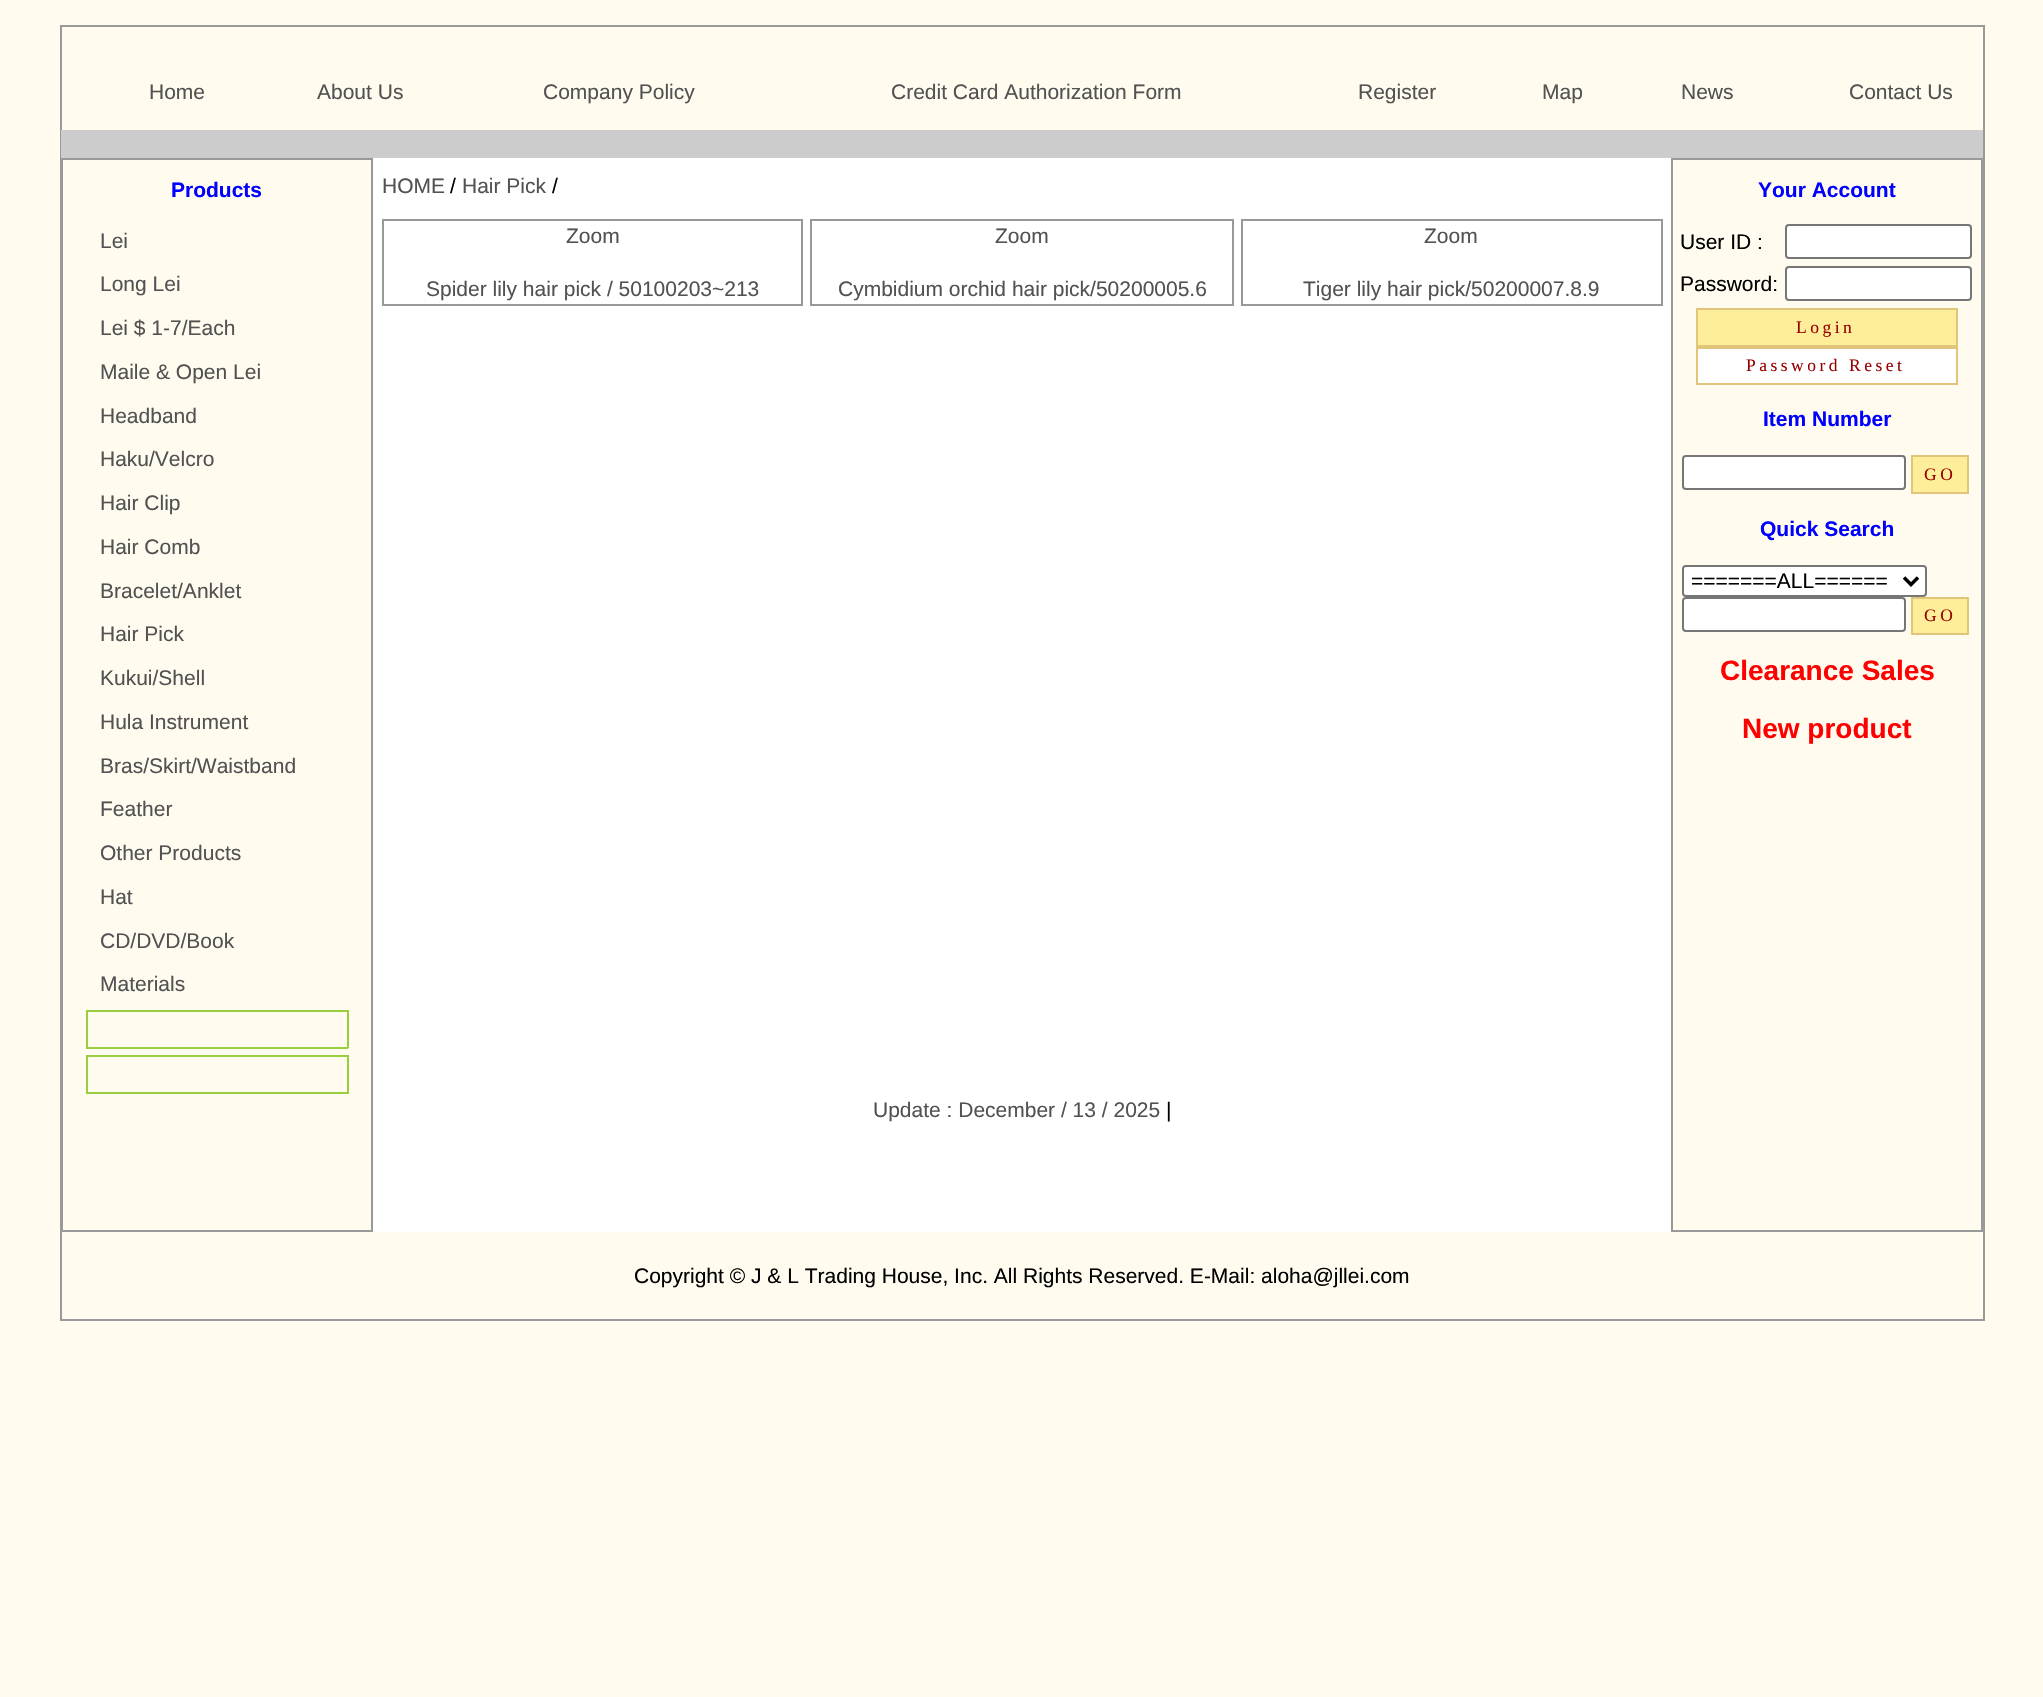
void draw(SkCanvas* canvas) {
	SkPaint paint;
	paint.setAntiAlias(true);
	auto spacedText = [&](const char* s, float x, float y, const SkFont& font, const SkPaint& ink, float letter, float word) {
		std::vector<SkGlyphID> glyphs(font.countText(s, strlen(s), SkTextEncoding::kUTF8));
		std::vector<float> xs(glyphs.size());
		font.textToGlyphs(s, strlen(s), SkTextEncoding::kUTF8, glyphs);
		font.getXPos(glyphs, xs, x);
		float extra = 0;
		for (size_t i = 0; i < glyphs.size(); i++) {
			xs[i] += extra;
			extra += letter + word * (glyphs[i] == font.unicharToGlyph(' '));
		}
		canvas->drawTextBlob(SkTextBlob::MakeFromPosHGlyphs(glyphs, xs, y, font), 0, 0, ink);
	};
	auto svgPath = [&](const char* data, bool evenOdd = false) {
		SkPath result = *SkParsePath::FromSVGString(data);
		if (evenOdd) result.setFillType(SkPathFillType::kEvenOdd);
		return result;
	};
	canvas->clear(0xfffffbef);
	paint.setStroke(true);
	paint.setStrokeWidth(2);
	paint.setColor(0xff999999);
	canvas->drawRect(SkRect::MakeXYWH(61, 26, 1923, 1294), paint);
	SkFont f1(fontMgr->matchFamilyStyle("Liberation Sans", SkFontStyle::Normal()), 21);
	f1.setSubpixel(true);
	paint.setStroke(false);
	paint.setColor(0xff525252);
	canvas->drawString("Home", 149, 99, f1, paint);
	canvas->drawString("About Us", 317, 99, f1, paint);
	canvas->drawString("Company Policy", 543, 99, f1, paint);
	canvas->drawString("Credit Card Authorization Form", 891, 99, f1, paint);
	canvas->drawString("Register", 1358, 99, f1, paint);
	canvas->drawString("Map", 1542, 99, f1, paint);
	canvas->drawString("News", 1681, 99, f1, paint);
	canvas->drawString("Contact Us", 1849, 99, f1, paint);
	paint.setColor(0xffcccccc);
	canvas->drawRect(SkRect::MakeXYWH(61, 130, 1922, 28), paint);
	paint.setStroke(true);
	paint.setColor(0xff999999);
	canvas->drawRect(SkRect::MakeXYWH(62, 159, 310, 1072), paint);
	SkFont f2(fontMgr->matchFamilyStyle("Liberation Sans", SkFontStyle::Bold()), 21);
	f2.setSubpixel(true);
	paint.setStroke(false);
	paint.setColor(0xff0000ff);
	canvas->drawString("Products", 171, 197, f2, paint);
	paint.setColor(0xff525252);
	canvas->drawString("Lei", 100, 248, f1, paint);
	canvas->drawString("Long Lei", 100, 291, f1, paint);
	canvas->drawString("Lei $ 1-7/Each", 100, 335, f1, paint);
	canvas->drawString("Maile & Open Lei", 100, 379, f1, paint);
	canvas->drawString("Headband", 100, 423, f1, paint);
	canvas->drawString("Haku/Velcro", 100, 466, f1, paint);
	canvas->drawString("Hair Clip", 100, 510, f1, paint);
	canvas->drawString("Hair Comb", 100, 554, f1, paint);
	canvas->drawString("Bracelet/Anklet", 100, 598, f1, paint);
	canvas->drawString("Hair Pick", 100, 641, f1, paint);
	canvas->drawString("Kukui/Shell", 100, 685, f1, paint);
	canvas->drawString("Hula Instrument", 100, 729, f1, paint);
	canvas->drawString("Bras/Skirt/Waistband", 100, 773, f1, paint);
	canvas->drawString("Feather", 100, 816, f1, paint);
	canvas->drawString("Other Products", 100, 860, f1, paint);
	canvas->drawString("Hat", 100, 904, f1, paint);
	canvas->drawString("CD/DVD/Book", 100, 948, f1, paint);
	canvas->drawString("Materials", 100, 991, f1, paint);
	paint.setColor(0xff99ce40);
	canvas->drawRect(SkRect::MakeXYWH(86, 1010, 262, 2), paint);
	canvas->drawRect(SkRect::MakeXYWH(347, 1010, 2, 38), paint);
	canvas->drawRect(SkRect::MakeXYWH(86, 1047, 262, 2), paint);
	canvas->drawRect(SkRect::MakeXYWH(86, 1010, 2, 38), paint);
	canvas->drawRect(SkRect::MakeXYWH(86, 1055, 262, 2), paint);
	canvas->drawRect(SkRect::MakeXYWH(347, 1055, 2, 39), paint);
	canvas->drawRect(SkRect::MakeXYWH(86, 1092, 262, 2), paint);
	canvas->drawRect(SkRect::MakeXYWH(86, 1055, 2, 39), paint);
	paint.setColor(0xffffffff);
	canvas->drawRect(SkRect::MakeXYWH(373, 158, 1298, 1074), paint);
	paint.setColor(0xff525252);
	canvas->drawString("HOME", 382, 193, f1, paint);
	paint.setColor(0xff000000);
	canvas->drawString("/", 450, 193, f1, paint);
	paint.setColor(0xff525252);
	canvas->drawString("Hair Pick", 462, 193, f1, paint);
	paint.setColor(0xff000000);
	canvas->drawString("/", 552, 193, f1, paint);
	paint.setStroke(true);
	paint.setColor(0xff999999);
	canvas->drawRect(SkRect::MakeXYWH(383, 220, 419, 85), paint);
	paint.setStroke(false);
	paint.setColor(0xff525252);
	canvas->drawString("Zoom", 566, 243, f1, paint);
	canvas->drawString("Spider lily hair pick / 50100203~213", 426, 296, f1, paint);
	paint.setStroke(true);
	paint.setColor(0xff999999);
	canvas->drawRect(SkRect::MakeXYWH(811, 220, 422, 85), paint);
	paint.setStroke(false);
	paint.setColor(0xff525252);
	canvas->drawString("Zoom", 995, 243, f1, paint);
	canvas->drawString("Cymbidium orchid hair pick/50200005.6", 838, 296, f1, paint);
	paint.setStroke(true);
	paint.setColor(0xff999999);
	canvas->drawRect(SkRect::MakeXYWH(1242, 220, 420, 85), paint);
	paint.setStroke(false);
	paint.setColor(0xff525252);
	canvas->drawString("Zoom", 1424, 243, f1, paint);
	canvas->drawString("Tiger lily hair pick/50200007.8.9", 1303, 296, f1, paint);
	paint.setStroke(true);
	paint.setColor(0xff999999);
	canvas->drawRect(SkRect::MakeXYWH(1672, 159, 310, 1072), paint);
	paint.setStroke(false);
	paint.setColor(0xff0000ff);
	canvas->drawString("Your Account", 1758, 197, f2, paint);
	paint.setColor(0xff000000);
	canvas->drawString("User ID :", 1680, 249, f1, paint);
	paint.setColor(0xffffffff);
	canvas->drawRoundRect(SkRect::MakeXYWH(1786, 225, 185, 33), 3, 3, paint);
	paint.setStroke(true);
	paint.setColor(0xff767676);
	canvas->drawRoundRect(SkRect::MakeXYWH(1786, 225, 185, 33), 3, 3, paint);
	paint.setStroke(false);
	paint.setColor(0xff000000);
	canvas->drawString("Password:", 1680, 291, f1, paint);
	paint.setColor(0xffffffff);
	canvas->drawRoundRect(SkRect::MakeXYWH(1786, 267, 185, 33), 3, 3, paint);
	paint.setStroke(true);
	paint.setColor(0xff767676);
	canvas->drawRoundRect(SkRect::MakeXYWH(1786, 267, 185, 33), 3, 3, paint);
	paint.setStroke(false);
	paint.setColor(0xffffee99);
	canvas->drawRect(SkRect::MakeXYWH(1697, 309, 260, 37), paint);
	paint.setStroke(true);
	paint.setColor(0xffe0c57b);
	canvas->drawRect(SkRect::MakeXYWH(1697, 309, 260, 37), paint);
	SkFont f3(fontMgr->matchFamilyStyle("Liberation Serif", SkFontStyle::Normal()), 17.5);
	f3.setSubpixel(true);
	paint.setStroke(false);
	paint.setColor(0xff990000);
	spacedText("Login", 1796, 333, f3, paint, 3.5, 0);
	paint.setColor(0xffffffff);
	canvas->drawRect(SkRect::MakeXYWH(1697, 348, 260, 36), paint);
	paint.setStroke(true);
	paint.setColor(0xffe0c57b);
	canvas->drawRect(SkRect::MakeXYWH(1697, 348, 260, 36), paint);
	paint.setStroke(false);
	paint.setColor(0xff990000);
	spacedText("Password Reset", 1746, 371, f3, paint, 3.5, 0);
	paint.setColor(0xff0000ff);
	canvas->drawString("Item Number", 1763, 426, f2, paint);
	paint.setColor(0xffffffff);
	canvas->drawRoundRect(SkRect::MakeXYWH(1683, 456, 222, 33), 3, 3, paint);
	paint.setStroke(true);
	paint.setColor(0xff767676);
	canvas->drawRoundRect(SkRect::MakeXYWH(1683, 456, 222, 33), 3, 3, paint);
	paint.setStroke(false);
	paint.setColor(0xffffee99);
	canvas->drawRect(SkRect::MakeXYWH(1912, 456, 56, 37), paint);
	paint.setStroke(true);
	paint.setColor(0xffe0c57b);
	canvas->drawRect(SkRect::MakeXYWH(1912, 456, 56, 37), paint);
	paint.setStroke(false);
	paint.setColor(0xff990000);
	spacedText("GO", 1924, 480, f3, paint, 3.5, 0);
	paint.setColor(0xff0000ff);
	canvas->drawString("Quick Search", 1760, 536, f2, paint);
	paint.setColor(0xffffffff);
	canvas->drawRoundRect(SkRect::MakeXYWH(1683, 566, 243, 30), 3, 3, paint);
	paint.setStroke(true);
	paint.setColor(0xff767676);
	canvas->drawRoundRect(SkRect::MakeXYWH(1683, 566, 243, 30), 3, 3, paint);
	paint.setStrokeWidth(3.5);
	paint.setColor(0xff000000);
	canvas->drawPath(svgPath("M1904 577.5L1911 584.5L1918 577.5"), paint);
	paint.setStroke(false);
	canvas->drawString("=======ALL======", 1691, 588, f1, paint);
	paint.setColor(0xffffffff);
	canvas->drawRoundRect(SkRect::MakeXYWH(1683, 598, 222, 33), 3, 3, paint);
	paint.setStroke(true);
	paint.setStrokeWidth(2);
	paint.setColor(0xff767676);
	canvas->drawRoundRect(SkRect::MakeXYWH(1683, 598, 222, 33), 3, 3, paint);
	paint.setStroke(false);
	paint.setColor(0xffffee99);
	canvas->drawRect(SkRect::MakeXYWH(1912, 598, 56, 36), paint);
	paint.setStroke(true);
	paint.setColor(0xffe0c57b);
	canvas->drawRect(SkRect::MakeXYWH(1912, 598, 56, 36), paint);
	paint.setStroke(false);
	paint.setColor(0xff990000);
	spacedText("GO", 1924, 621, f3, paint, 3.5, 0);
	SkFont f4(fontMgr->matchFamilyStyle("Liberation Sans", SkFontStyle::Bold()), 28);
	f4.setSubpixel(true);
	paint.setColor(0xffff0000);
	canvas->drawString("Clearance Sales", 1720, 680, f4, paint);
	canvas->drawString("New product", 1742, 738, f4, paint);
	paint.setColor(0xff525252);
	canvas->drawString("Update : December / 13 / 2025", 873, 1117, f1, paint);
	paint.setColor(0xff000000);
	canvas->drawString("|", 1166, 1117, f1, paint);
	canvas->drawString("Copyright © J & L Trading House, Inc. All Rights Reserved. E-Mail: aloha@jllei.com", 634, 1283, f1, paint);
}
